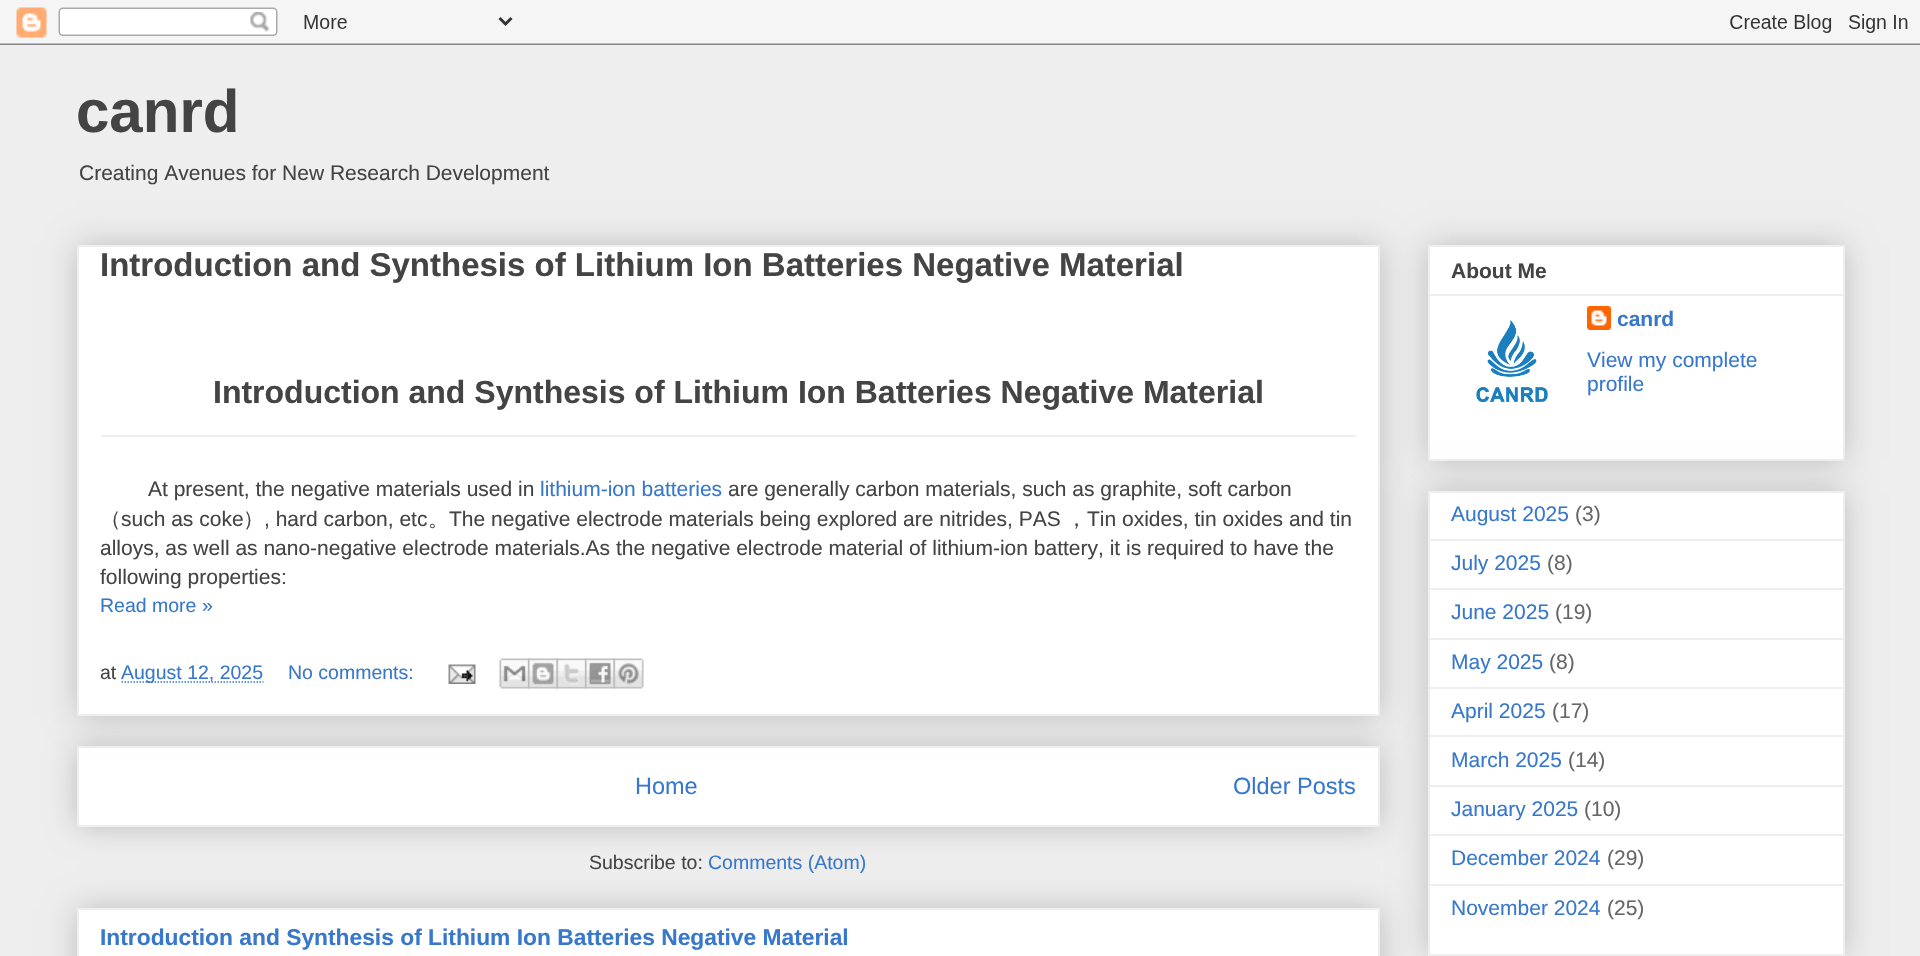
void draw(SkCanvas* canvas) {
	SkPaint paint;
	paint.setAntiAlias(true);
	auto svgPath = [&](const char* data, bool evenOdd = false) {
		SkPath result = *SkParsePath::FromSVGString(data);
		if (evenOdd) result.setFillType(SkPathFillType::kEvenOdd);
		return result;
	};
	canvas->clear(0xffeeeeee);
	canvas->drawImageRect(SkImages::DeferredFromEncodedData(SkData::MakeFromFileName("img1.png")), SkRect::MakeXYWH(0, 0, 1920, 45), SkSamplingOptions());
	SkFont f1(fontMgr->matchFamilyStyle("Liberation Sans", SkFontStyle::Bold()), 60);
	f1.setSubpixel(true);
	paint.setColor(0xff444444);
	canvas->drawString("canrd", 76, 132, f1, paint);
	SkFont f2(fontMgr->matchFamilyStyle("Liberation Sans", SkFontStyle::Normal()), 21);
	f2.setSubpixel(true);
	canvas->drawString("Creating Avenues for New Research Development", 79, 180, f2, paint);
	paint.setColor(0x33000000);
	paint.setMaskFilter(SkMaskFilter::MakeBlur(kNormal_SkBlurStyle, 15));
	canvas->drawRect(SkRect::MakeXYWH(77, 746, 1303, 81), paint);
	paint.setMaskFilter(nullptr);
	paint.setColor(0xffffffff);
	canvas->drawRect(SkRect::MakeXYWH(78, 747, 1301, 79), paint);
	paint.setStroke(true);
	paint.setStrokeWidth(2);
	paint.setColor(0xffeeeeee);
	canvas->drawRect(SkRect::MakeXYWH(78, 747, 1301, 79), paint);
	paint.setStroke(false);
	paint.setColor(0x33000000);
	paint.setMaskFilter(SkMaskFilter::MakeBlur(kNormal_SkBlurStyle, 15));
	canvas->drawRect(SkRect::MakeXYWH(77, 245, 1303, 471), paint);
	paint.setMaskFilter(nullptr);
	paint.setColor(0xffffffff);
	canvas->drawRect(SkRect::MakeXYWH(78, 246, 1301, 469), paint);
	paint.setStroke(true);
	paint.setColor(0xffeeeeee);
	canvas->drawRect(SkRect::MakeXYWH(78, 246, 1301, 469), paint);
	SkFont f3(fontMgr->matchFamilyStyle("Liberation Sans", SkFontStyle::Bold()), 33);
	f3.setSubpixel(true);
	paint.setStroke(false);
	paint.setColor(0xff444444);
	canvas->drawString("Introduction and Synthesis of Lithium Ion Batteries Negative Material", 100, 276, f3, paint);
	SkFont f4(fontMgr->matchFamilyStyle("Liberation Sans", SkFontStyle::Bold()), 32);
	f4.setSubpixel(true);
	canvas->drawString("Introduction and Synthesis of Lithium Ion Batteries Negative Material", 213, 403, f4, paint);
	paint.setColor(0xffeeeeee);
	canvas->drawRect(SkRect::MakeXYWH(101, 435, 1255, 2), paint);
	paint.setColor(0xff444444);
	canvas->drawString("At present, the negative materials used in", 148, 496, f2, paint);
	paint.setColor(0xff3778cd);
	canvas->drawString("lithium-ion batteries", 540, 496, f2, paint);
	paint.setColor(0xff444444);
	canvas->drawString("are generally carbon materials, such as graphite, soft carbon", 728, 496, f2, paint);
	SkFont f5(fontMgr->matchFamilyStyle("WenQuanYi Zen Hei", SkFontStyle(500, SkFontStyle::kNormal_Width, SkFontStyle::kUpright_Slant)), 21);
	f5.setSubpixel(true);
	canvas->drawString("（", 100, 526, f5, paint);
	canvas->drawString("such as coke", 121, 526, f2, paint);
	canvas->drawString("）", 243, 526, f5, paint);
	canvas->drawString(", hard carbon, etc", 264, 526, f2, paint);
	canvas->drawString("。", 428, 526, f5, paint);
	canvas->drawString("The negative electrode materials being explored are nitrides, PAS", 449, 526, f2, paint);
	canvas->drawString("，", 1066, 526, f5, paint);
	canvas->drawString("Tin oxides, tin oxides and tin", 1087, 526, f2, paint);
	canvas->drawString("alloys, as well as nano-negative electrode materials.As the negative electrode material of lithium-ion battery, it is required to have the", 100, 555, f2, paint);
	canvas->drawString("following properties:", 100, 584, f2, paint);
	SkFont f6(fontMgr->matchFamilyStyle("Liberation Sans", SkFontStyle::Normal()), 19.5);
	f6.setSubpixel(true);
	paint.setColor(0xff3778cd);
	canvas->drawString("Read more »", 100, 612, f6, paint);
	paint.setColor(0xff444444);
	canvas->drawString("at", 100, 679, f6, paint);
	paint.setStroke(true);
	paint.setStrokeWidth(1.5);
	paint.setColor(0xff3778cd);
	paint.setPathEffect(SkDashPathEffect::Make({{1.5f, 1.5f}}, 0));
	canvas->drawPath(svgPath("M121.5 682H263.5"), paint);
	paint.setPathEffect(nullptr);
	paint.setStroke(false);
	canvas->drawString("August 12, 2025", 121, 679, f6, paint);
	canvas->drawString("No comments:", 288, 679, f6, paint);
	canvas->drawImageRect(SkImages::DeferredFromEncodedData(SkData::MakeFromFileName("img2.png")), SkRect::MakeXYWH(448, 664, 28, 20), SkSamplingOptions());
	canvas->drawImageRect(SkImages::DeferredFromEncodedData(SkData::MakeFromFileName("img3.png")), SkRect::MakeXYWH(499, 658, 31, 31), SkSamplingOptions());
	canvas->drawImageRect(SkImages::DeferredFromEncodedData(SkData::MakeFromFileName("img4.png")), SkRect::MakeXYWH(528, 658, 30, 31), SkSamplingOptions());
	canvas->drawImageRect(SkImages::DeferredFromEncodedData(SkData::MakeFromFileName("img5.png")), SkRect::MakeXYWH(556, 658, 31, 31), SkSamplingOptions());
	canvas->drawImageRect(SkImages::DeferredFromEncodedData(SkData::MakeFromFileName("img6.png")), SkRect::MakeXYWH(585, 658, 30, 31), SkSamplingOptions());
	canvas->drawImageRect(SkImages::DeferredFromEncodedData(SkData::MakeFromFileName("img7.png")), SkRect::MakeXYWH(613, 658, 31, 31), SkSamplingOptions());
	SkFont f7(fontMgr->matchFamilyStyle("Liberation Sans", SkFontStyle::Normal()), 23.5);
	f7.setSubpixel(true);
	canvas->drawString("Home", 635, 794, f7, paint);
	canvas->drawString("Older Posts", 1233, 794, f7, paint);
	paint.setColor(0xff444444);
	canvas->drawString("Subscribe to:", 589, 869, f6, paint);
	paint.setColor(0xff3778cd);
	canvas->drawString("Comments (Atom)", 708, 869, f6, paint);
	paint.setColor(0x33000000);
	paint.setMaskFilter(SkMaskFilter::MakeBlur(kNormal_SkBlurStyle, 15));
	canvas->drawRect(SkRect::MakeXYWH(77, 908, 1303, 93), paint);
	paint.setMaskFilter(nullptr);
	paint.setColor(0xffffffff);
	canvas->drawRect(SkRect::MakeXYWH(78, 909, 1301, 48), paint);
	paint.setStroke(true);
	paint.setStrokeWidth(2);
	paint.setColor(0xffeeeeee);
	canvas->drawRect(SkRect::MakeXYWH(78, 909, 1301, 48), paint);
	SkFont f8(fontMgr->matchFamilyStyle("Liberation Sans", SkFontStyle::Bold()), 22.8);
	f8.setSubpixel(true);
	paint.setStroke(false);
	paint.setColor(0xff3778cd);
	canvas->drawString("Introduction and Synthesis of Lithium Ion Batteries Negative Material", 100, 945, f8, paint);
	paint.setColor(0x33000000);
	paint.setMaskFilter(SkMaskFilter::MakeBlur(kNormal_SkBlurStyle, 15));
	canvas->drawRect(SkRect::MakeXYWH(1428, 245, 417, 216), paint);
	paint.setMaskFilter(nullptr);
	paint.setColor(0xffffffff);
	canvas->drawRect(SkRect::MakeXYWH(1429, 246, 415, 214), paint);
	paint.setStroke(true);
	paint.setColor(0xffeeeeee);
	canvas->drawRect(SkRect::MakeXYWH(1429, 246, 415, 214), paint);
	SkFont f9(fontMgr->matchFamilyStyle("Liberation Sans", SkFontStyle::Bold()), 21);
	f9.setSubpixel(true);
	paint.setStroke(false);
	paint.setColor(0xff444444);
	canvas->drawString("About Me", 1451, 278, f9, paint);
	paint.setColor(0xffeeeeee);
	canvas->drawRect(SkRect::MakeXYWH(1430, 294, 414, 2), paint);
	canvas->drawImageRect(SkImages::DeferredFromEncodedData(SkData::MakeFromFileName("img8.png")), SkRect::MakeXYWH(1476, 320, 72, 83), SkSamplingOptions());
	canvas->drawImageRect(SkImages::DeferredFromEncodedData(SkData::MakeFromFileName("img9.png")), SkRect::MakeXYWH(1587, 306, 24, 24), SkSamplingOptions());
	paint.setColor(0xff3778cd);
	canvas->drawString("canrd", 1617, 326, f9, paint);
	canvas->drawString("View my complete", 1587, 367, f2, paint);
	canvas->drawString("profile", 1587, 391, f2, paint);
	paint.setColor(0x33000000);
	paint.setMaskFilter(SkMaskFilter::MakeBlur(kNormal_SkBlurStyle, 15));
	canvas->drawRect(SkRect::MakeXYWH(1428, 491, 417, 465), paint);
	paint.setMaskFilter(nullptr);
	paint.setColor(0xffffffff);
	canvas->drawRect(SkRect::MakeXYWH(1429, 492, 415, 463), paint);
	paint.setStroke(true);
	paint.setColor(0xffeeeeee);
	canvas->drawRect(SkRect::MakeXYWH(1429, 492, 415, 463), paint);
	paint.setStroke(false);
	paint.setColor(0xff3778cd);
	canvas->drawString("August 2025", 1451, 521, f2, paint);
	paint.setColor(0xff666666);
	canvas->drawString("(3)", 1575, 521, f2, paint);
	paint.setColor(0xffeeeeee);
	canvas->drawRect(SkRect::MakeXYWH(1430, 539, 414, 2), paint);
	paint.setColor(0xff3778cd);
	canvas->drawString("July 2025", 1451, 570, f2, paint);
	paint.setColor(0xff666666);
	canvas->drawString("(8)", 1547, 570, f2, paint);
	paint.setColor(0xffeeeeee);
	canvas->drawRect(SkRect::MakeXYWH(1430, 588, 414, 2), paint);
	paint.setColor(0xff3778cd);
	canvas->drawString("June 2025", 1451, 619, f2, paint);
	paint.setColor(0xff666666);
	canvas->drawString("(19)", 1555, 619, f2, paint);
	paint.setColor(0xffeeeeee);
	canvas->drawRect(SkRect::MakeXYWH(1430, 638, 414, 2), paint);
	paint.setColor(0xff3778cd);
	canvas->drawString("May 2025", 1451, 669, f2, paint);
	paint.setColor(0xff666666);
	canvas->drawString("(8)", 1549, 669, f2, paint);
	paint.setColor(0xffeeeeee);
	canvas->drawRect(SkRect::MakeXYWH(1430, 687, 414, 2), paint);
	paint.setColor(0xff3778cd);
	canvas->drawString("April 2025", 1451, 718, f2, paint);
	paint.setColor(0xff666666);
	canvas->drawString("(17)", 1552, 718, f2, paint);
	paint.setColor(0xffeeeeee);
	canvas->drawRect(SkRect::MakeXYWH(1430, 735, 414, 2), paint);
	paint.setColor(0xff3778cd);
	canvas->drawString("March 2025", 1451, 767, f2, paint);
	paint.setColor(0xff666666);
	canvas->drawString("(14)", 1568, 767, f2, paint);
	paint.setColor(0xffeeeeee);
	canvas->drawRect(SkRect::MakeXYWH(1430, 785, 414, 2), paint);
	paint.setColor(0xff3778cd);
	canvas->drawString("January 2025", 1451, 816, f2, paint);
	paint.setColor(0xff666666);
	canvas->drawString("(10)", 1584, 816, f2, paint);
	paint.setColor(0xffeeeeee);
	canvas->drawRect(SkRect::MakeXYWH(1430, 834, 414, 2), paint);
	paint.setColor(0xff3778cd);
	canvas->drawString("December 2024", 1451, 865, f2, paint);
	paint.setColor(0xff666666);
	canvas->drawString("(29)", 1607, 865, f2, paint);
	paint.setColor(0xffeeeeee);
	canvas->drawRect(SkRect::MakeXYWH(1430, 884, 414, 2), paint);
	paint.setColor(0xff3778cd);
	canvas->drawString("November 2024", 1451, 915, f2, paint);
	paint.setColor(0xff666666);
	canvas->drawString("(25)", 1607, 915, f2, paint);
}
